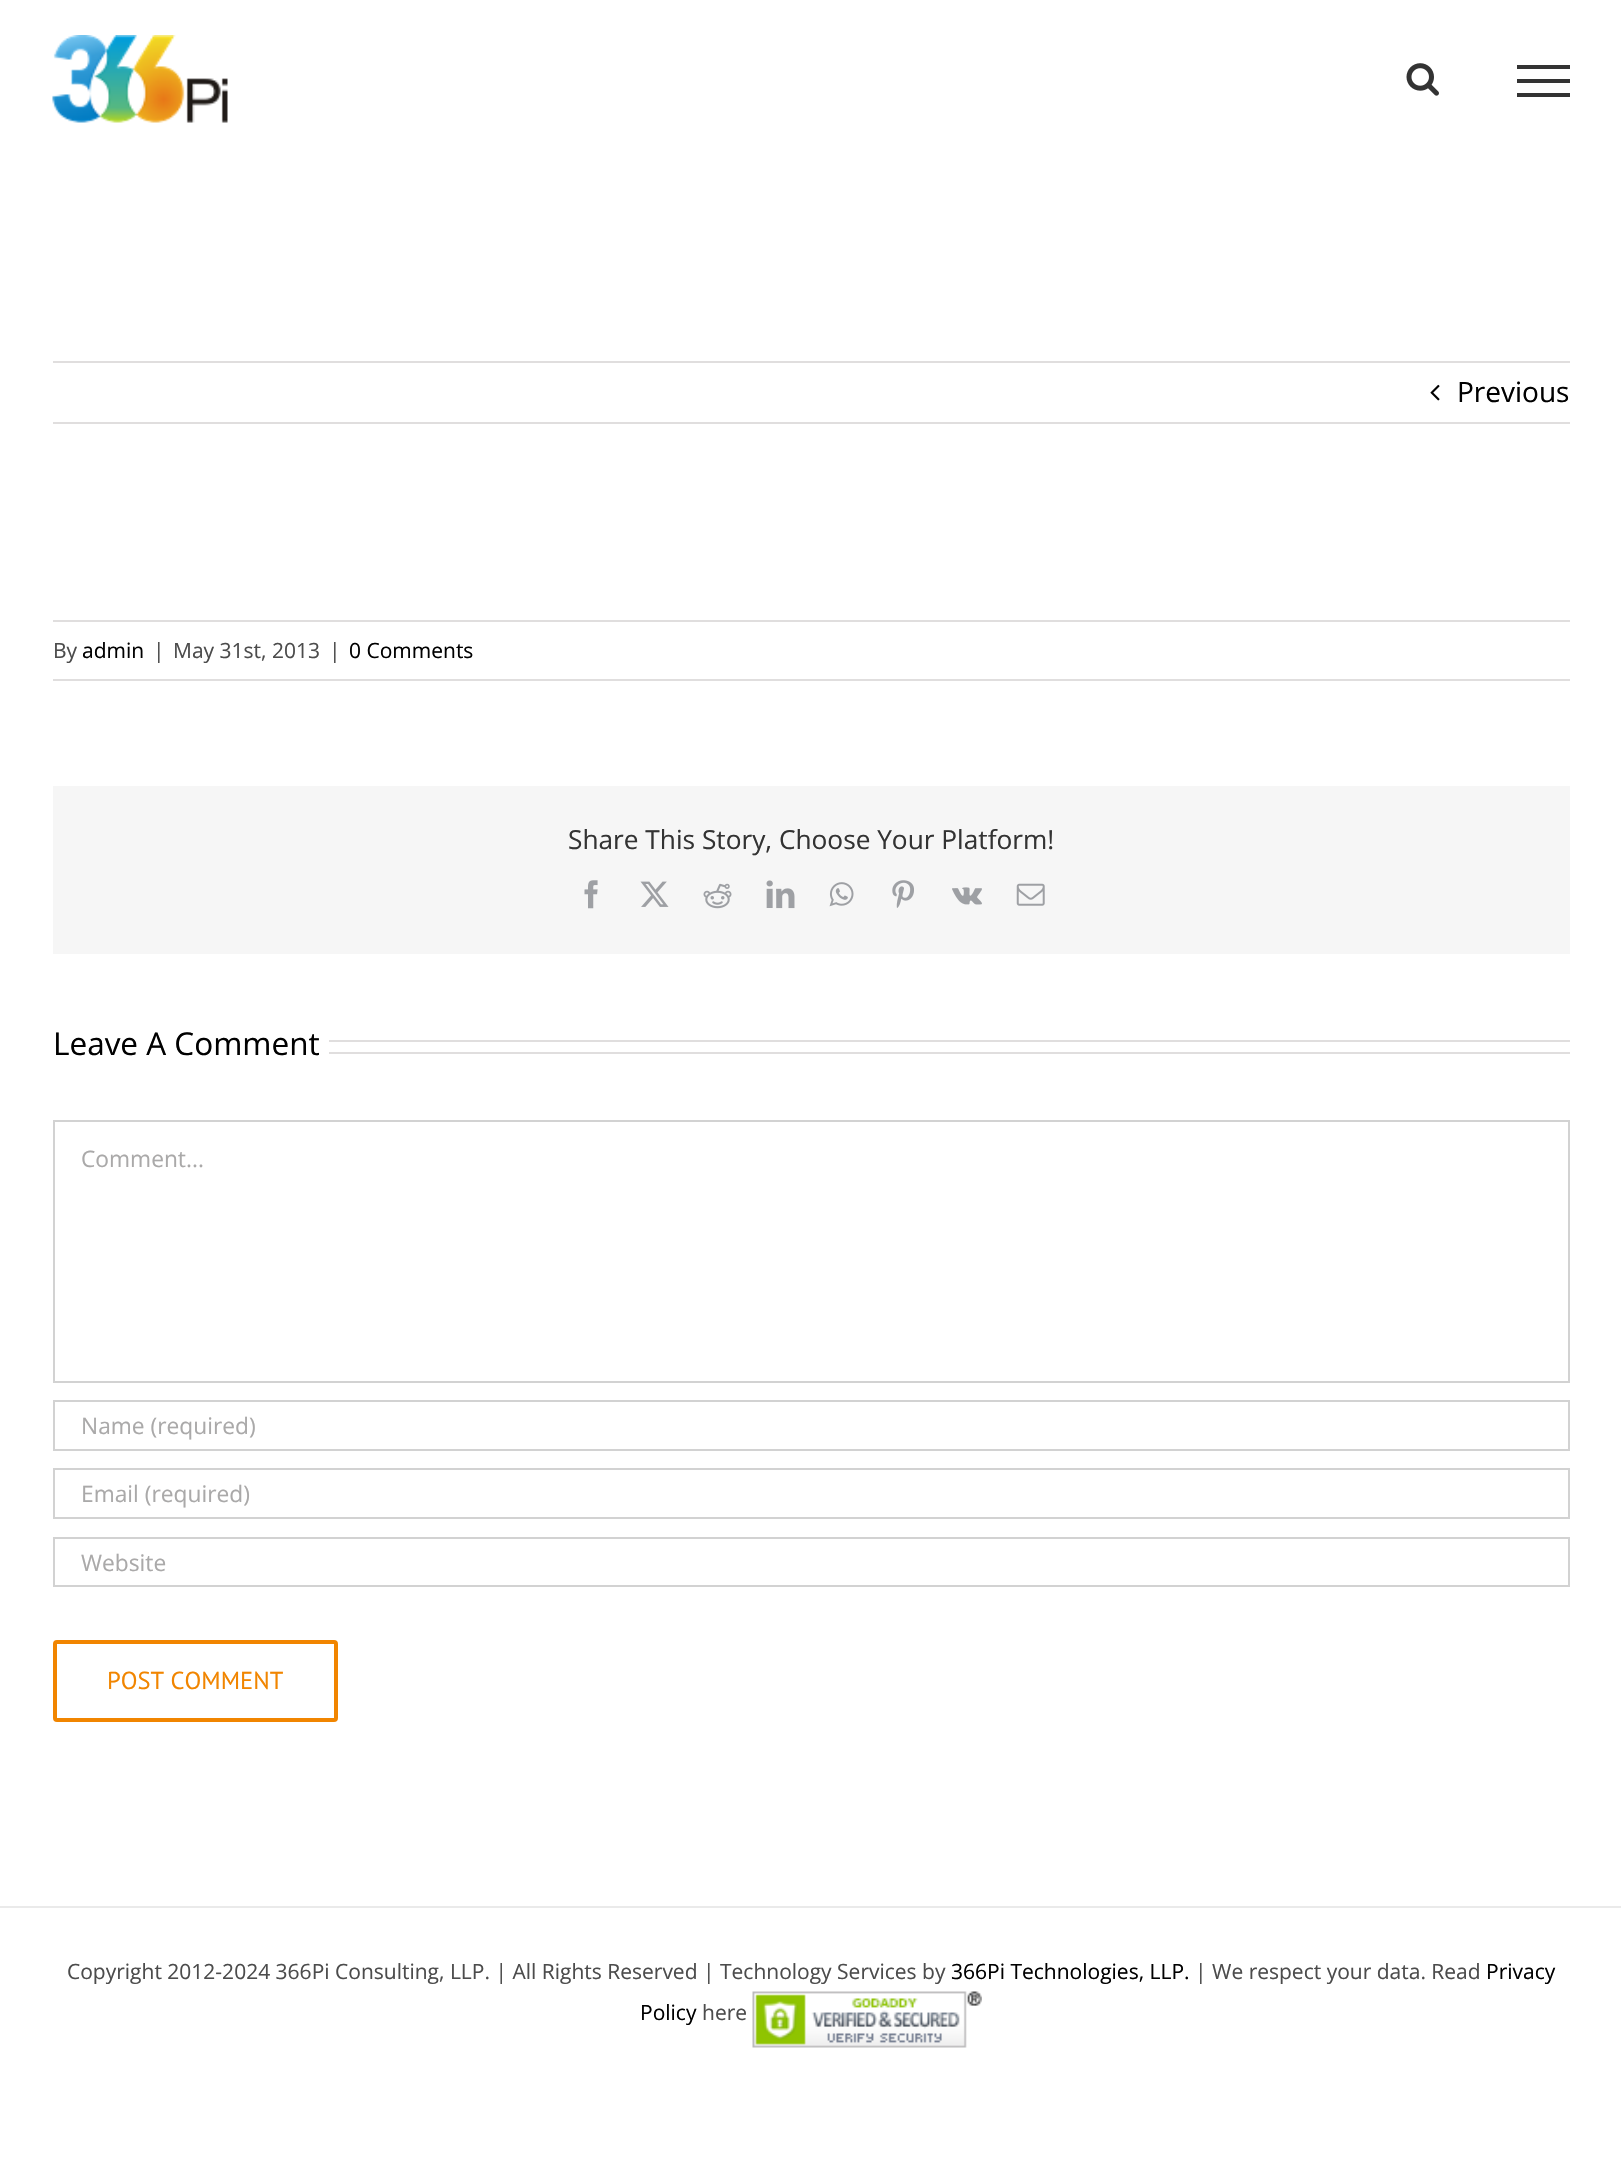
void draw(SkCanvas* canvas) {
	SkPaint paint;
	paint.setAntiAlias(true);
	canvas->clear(0xffffffff);
	canvas->drawImageRect(SkImages::DeferredFromEncodedData(SkData::MakeFromFileName("img1.png")), SkRect::MakeXYWH(52, 35, 176, 88), SkSamplingOptions());
	canvas->drawImageRect(SkImages::DeferredFromEncodedData(SkData::MakeFromFileName("img2.png")), SkRect::MakeXYWH(1406, 63, 33, 33), SkSamplingOptions());
	paint.setColor(0xff333333);
	canvas->drawRect(SkRect::MakeXYWH(1517, 65, 53, 4), paint);
	canvas->drawRect(SkRect::MakeXYWH(1517, 79, 53, 4), paint);
	canvas->drawRect(SkRect::MakeXYWH(1517, 93, 53, 4), paint);
	paint.setColor(0xffe0dede);
	canvas->drawRect(SkRect::MakeXYWH(53, 361, 1517, 2), paint);
	canvas->drawRect(SkRect::MakeXYWH(53, 422, 1517, 2), paint);
	canvas->drawImageRect(SkImages::DeferredFromEncodedData(SkData::MakeFromFileName("img3.png")), SkRect::MakeXYWH(1430, 384, 10, 17), SkSamplingOptions());
	SkFont f1(fontMgr->matchFamilyStyle("Open Sans", SkFontStyle::Normal()), 28);
	f1.setSubpixel(true);
	paint.setColor(0xff000000);
	canvas->drawString("Previous", 1457, 402, f1, paint);
	paint.setColor(0xffe0dede);
	canvas->drawRect(SkRect::MakeXYWH(53, 620, 1517, 2), paint);
	canvas->drawRect(SkRect::MakeXYWH(53, 679, 1517, 2), paint);
	SkFont f2(fontMgr->matchFamilyStyle("Open Sans", SkFontStyle::Normal()), 21);
	f2.setSubpixel(true);
	paint.setColor(0xff4c4c4c);
	canvas->drawString("By", 53, 658, f2, paint);
	paint.setColor(0xff000000);
	canvas->drawString("admin", 82, 658, f2, paint);
	paint.setColor(0xff4c4c4c);
	canvas->drawString("|", 153, 658, f2, paint);
	canvas->drawString("May 31st, 2013", 173, 658, f2, paint);
	canvas->drawString("|", 329, 658, f2, paint);
	paint.setColor(0xff000000);
	canvas->drawString("0 Comments", 349, 658, f2, paint);
	paint.setColor(0xfff6f6f6);
	canvas->drawRect(SkRect::MakeXYWH(53, 786, 1517, 168), paint);
	SkFont f3(fontMgr->matchFamilyStyle("Open Sans", SkFontStyle::Normal()), 26.25);
	f3.setSubpixel(true);
	paint.setColor(0xff333333);
	canvas->drawString("Share This Story, Choose Your Platform!", 568, 849, f3, paint);
	canvas->drawImageRect(SkImages::DeferredFromEncodedData(SkData::MakeFromFileName("img4.png")), SkRect::MakeXYWH(584, 880, 14, 29), SkSamplingOptions());
	canvas->drawImageRect(SkImages::DeferredFromEncodedData(SkData::MakeFromFileName("img5.png")), SkRect::MakeXYWH(640, 881, 29, 26), SkSamplingOptions());
	canvas->drawImageRect(SkImages::DeferredFromEncodedData(SkData::MakeFromFileName("img6.png")), SkRect::MakeXYWH(703, 883, 29, 26), SkSamplingOptions());
	canvas->drawImageRect(SkImages::DeferredFromEncodedData(SkData::MakeFromFileName("img7.png")), SkRect::MakeXYWH(766, 880, 29, 29), SkSamplingOptions());
	canvas->drawImageRect(SkImages::DeferredFromEncodedData(SkData::MakeFromFileName("img8.png")), SkRect::MakeXYWH(829, 882, 25, 25), SkSamplingOptions());
	canvas->drawImageRect(SkImages::DeferredFromEncodedData(SkData::MakeFromFileName("img9.png")), SkRect::MakeXYWH(892, 880, 22, 28), SkSamplingOptions());
	canvas->drawImageRect(SkImages::DeferredFromEncodedData(SkData::MakeFromFileName("img10.png")), SkRect::MakeXYWH(952, 887, 30, 18), SkSamplingOptions());
	canvas->drawImageRect(SkImages::DeferredFromEncodedData(SkData::MakeFromFileName("img11.png")), SkRect::MakeXYWH(1016, 883, 29, 23), SkSamplingOptions());
	SkFont f4(fontMgr->matchFamilyStyle("Open Sans", SkFontStyle::Normal()), 31.5);
	f4.setSubpixel(true);
	paint.setColor(0xff000000);
	canvas->drawString("Leave A Comment", 53, 1055, f4, paint);
	paint.setColor(0xffe0dede);
	canvas->drawRect(SkRect::MakeXYWH(329, 1040, 1241, 2), paint);
	canvas->drawRect(SkRect::MakeXYWH(329, 1052, 1241, 2), paint);
	paint.setStroke(true);
	paint.setStrokeWidth(2);
	paint.setColor(0xffd2d2d2);
	canvas->drawRect(SkRect::MakeXYWH(54, 1121, 1515, 261), paint);
	SkFont f5(fontMgr->matchFamilyStyle("Open Sans", SkFontStyle::Normal()), 22.75);
	f5.setSubpixel(true);
	paint.setStroke(false);
	paint.setColor(0xffaaa9a9);
	canvas->drawString("Comment...", 81, 1167, f5, paint);
	paint.setStroke(true);
	paint.setColor(0xffd2d2d2);
	canvas->drawRect(SkRect::MakeXYWH(54, 1401, 1515, 49), paint);
	paint.setStroke(false);
	paint.setColor(0xffaaa9a9);
	canvas->drawString("Name (required)", 81, 1434, f5, paint);
	paint.setStroke(true);
	paint.setColor(0xffd2d2d2);
	canvas->drawRect(SkRect::MakeXYWH(54, 1469, 1515, 49), paint);
	paint.setStroke(false);
	paint.setColor(0xffaaa9a9);
	canvas->drawString("Email (required)", 81, 1502, f5, paint);
	paint.setStroke(true);
	paint.setColor(0xffd2d2d2);
	canvas->drawRect(SkRect::MakeXYWH(54, 1538, 1515, 48), paint);
	paint.setStroke(false);
	paint.setColor(0xffaaa9a9);
	canvas->drawString("Website", 81, 1571, f5, paint);
	paint.setStroke(true);
	paint.setStrokeWidth(4);
	paint.setColor(0xfff18500);
	canvas->drawRoundRect(SkRect::MakeXYWH(55, 1642, 281, 78), 2, 2, paint);
	SkFont f6(fontMgr->matchFamilyStyle("PT Sans", SkFontStyle::Normal()), 24.5);
	f6.setSubpixel(true);
	paint.setStroke(false);
	canvas->drawString("POST COMMENT", 107, 1689, f6, paint);
	paint.setColor(0xffeaeaea);
	canvas->drawRect(SkRect::MakeXYWH(0, 1906, 1621, 2), paint);
	paint.setColor(0xff4c4c4c);
	canvas->drawString("Copyright 2012-2024 366Pi Consulting, LLP. | All Rights Reserved | Technology Services by", 67, 1979, f2, paint);
	paint.setColor(0xff000000);
	canvas->drawString("366Pi Technologies, LLP.", 951, 1979, f2, paint);
	paint.setColor(0xff4c4c4c);
	canvas->drawString("| We respect your data. Read", 1195, 1979, f2, paint);
	paint.setColor(0xff000000);
	canvas->drawString("Privacy", 1486, 1979, f2, paint);
	canvas->drawString("Policy", 640, 2020, f2, paint);
	paint.setColor(0xff4c4c4c);
	canvas->drawString("here", 702, 2020, f2, paint);
	canvas->drawImageRect(SkImages::DeferredFromEncodedData(SkData::MakeFromFileName("img12.png")), SkRect::MakeXYWH(752, 1991, 230, 57), SkSamplingOptions());
}
